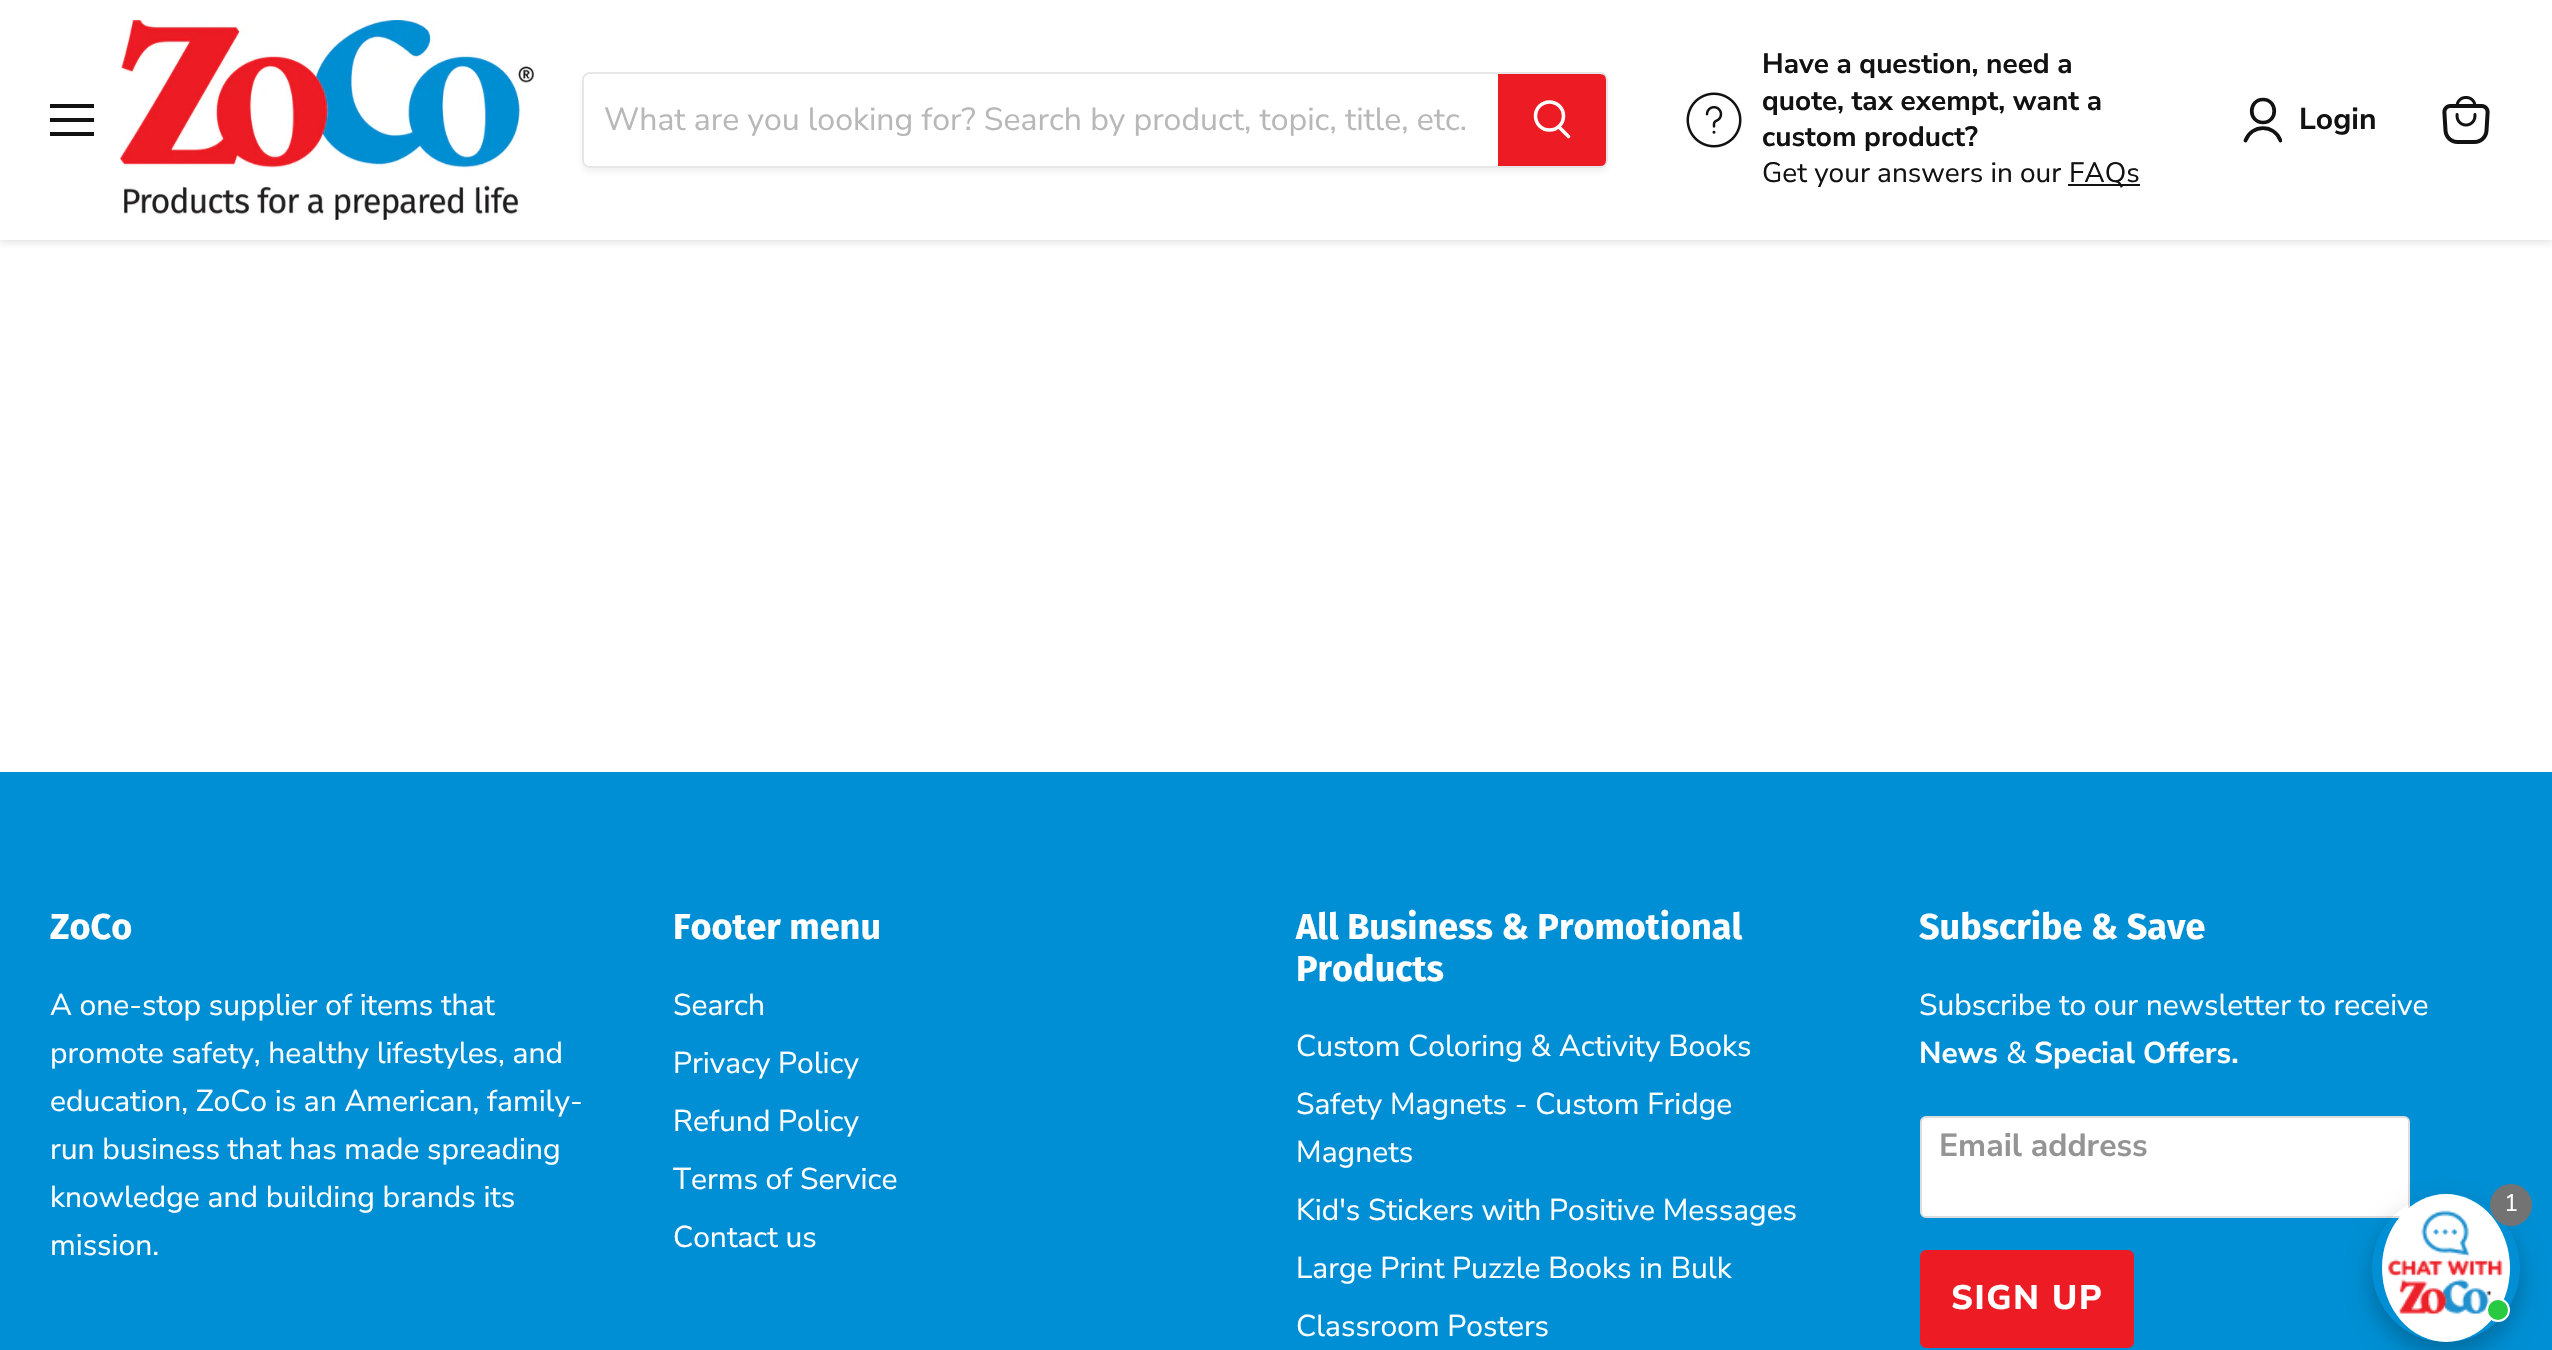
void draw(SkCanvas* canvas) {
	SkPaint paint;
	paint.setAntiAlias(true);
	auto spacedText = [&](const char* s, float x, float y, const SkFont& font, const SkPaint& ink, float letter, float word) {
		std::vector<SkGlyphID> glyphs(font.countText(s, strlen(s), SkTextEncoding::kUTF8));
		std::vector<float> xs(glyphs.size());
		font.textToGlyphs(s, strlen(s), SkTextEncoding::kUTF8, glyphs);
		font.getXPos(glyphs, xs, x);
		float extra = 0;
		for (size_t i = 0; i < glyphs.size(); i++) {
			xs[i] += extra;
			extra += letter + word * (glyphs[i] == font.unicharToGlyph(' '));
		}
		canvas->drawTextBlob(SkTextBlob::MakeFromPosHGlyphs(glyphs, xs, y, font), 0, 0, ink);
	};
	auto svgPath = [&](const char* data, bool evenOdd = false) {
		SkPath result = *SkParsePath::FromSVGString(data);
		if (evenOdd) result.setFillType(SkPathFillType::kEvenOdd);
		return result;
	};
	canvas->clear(0xffffffff);
	canvas->save();
	canvas->clipRect(SkRect::MakeXYWH(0, 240, 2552, 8));
	paint.setColor(0x40808080);
	paint.setMaskFilter(SkMaskFilter::MakeBlur(kNormal_SkBlurStyle, 4));
	canvas->drawRect(SkRect::MakeXYWH(0, 2, 2552, 240), paint);
	paint.setMaskFilter(nullptr);
	canvas->restore();
	paint.setColor(0xff121213);
	canvas->drawRect(SkRect::MakeXYWH(50, 104, 44, 4), paint);
	canvas->drawRect(SkRect::MakeXYWH(50, 118, 44, 4), paint);
	canvas->drawRect(SkRect::MakeXYWH(50, 132, 44, 4), paint);
	canvas->drawImageRect(SkImages::DeferredFromEncodedData(SkData::MakeFromFileName("img1.png")), SkRect::MakeXYWH(120, 20, 414, 200), SkSamplingOptions());
	canvas->save();
	canvas->clipPath(svgPath("M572 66H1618V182H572ZM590 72H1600C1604.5 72 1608 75.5 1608 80V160C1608 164.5 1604.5 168 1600 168H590C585.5 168 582 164.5 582 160V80C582 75.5 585.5 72 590 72Z", true), true);
	paint.setColor(0x1c808080);
	paint.setMaskFilter(SkMaskFilter::MakeBlur(kNormal_SkBlurStyle, 3));
	canvas->drawRoundRect(SkRect::MakeXYWH(582, 76, 1026, 96), 8, 8, paint);
	paint.setMaskFilter(nullptr);
	canvas->restore();
	paint.setStroke(true);
	paint.setStrokeWidth(2);
	paint.setColor(0x33808080);
	canvas->drawRoundRect(SkRect::MakeXYWH(583, 73, 1024, 94), 7, 7, paint);
	paint.setStroke(false);
	paint.setColor(0xffffffff);
	canvas->drawPath(svgPath("M590 74H1498V166H590C586.5 166 584 163.5 584 160V80C584 76.5 586.5 74 590 74Z"), paint);
	SkFont f1(fontMgr->matchFamilyStyle("Nunito Sans", SkFontStyle(200, SkFontStyle::kNormal_Width, SkFontStyle::kUpright_Slant)), 32);
	f1.setSubpixel(true);
	paint.setColor(0xffb8b8b8);
	canvas->drawString("What are you looking for? Search by product, topic, title, etc.", 604, 130, f1, paint);
	paint.setColor(0xffed1c24);
	canvas->drawPath(svgPath("M1499 75H1600C1603 75 1605 77 1605 80V160C1605 163 1603 165 1600 165H1499Z"), paint);
	paint.setStroke(true);
	canvas->drawPath(svgPath("M1499 75H1600C1603 75 1605 77 1605 80V160C1605 163 1603 165 1600 165H1499Z"), paint);
	paint.setStrokeWidth(3.5);
	paint.setStrokeCap(SkPaint::kRound_Cap);
	paint.setColor(0xffffffff);
	canvas->drawPath(svgPath("M1568.5 136.5L1559 127"), paint);
	paint.setStrokeCap(SkPaint::kButt_Cap);
	canvas->drawCircle(1549.5, 116, 14, paint);
	canvas->drawImageRect(SkImages::DeferredFromEncodedData(SkData::MakeFromFileName("img2.png")), SkRect::MakeXYWH(1686, 92, 56, 56), SkSamplingOptions());
	SkFont f2(fontMgr->matchFamilyStyle("Nunito Sans", SkFontStyle::Bold()), 28);
	f2.setSubpixel(true);
	paint.setStroke(false);
	paint.setColor(0xff121213);
	canvas->drawString("Have a question, need a", 1762, 73, f2, paint);
	canvas->drawString("quote, tax exempt, want a", 1762, 110, f2, paint);
	canvas->drawString("custom product?", 1762, 146, f2, paint);
	SkFont f3(fontMgr->matchFamilyStyle("Nunito Sans", SkFontStyle(200, SkFontStyle::kNormal_Width, SkFontStyle::kUpright_Slant)), 28);
	f3.setSubpixel(true);
	canvas->drawString("Get your answers in our", 1762, 182, f3, paint);
	canvas->drawRect(SkRect::MakeXYWH(2068, 184, 72, 2), paint);
	canvas->drawString("FAQs", 2069, 182, f3, paint);
	paint.setStroke(true);
	paint.setStrokeWidth(3.7);
	paint.setStrokeCap(SkPaint::kRound_Cap);
	paint.setStrokeJoin(SkPaint::kRound_Join);
	canvas->drawPath(svgPath("M2263 122.5C2278 122.5 2278 99.5 2263 99.5C2248 99.5 2248 122.5 2263 122.5Z"), paint);
	canvas->save();
	canvas->clipRect(SkRect::MakeXYWH(2242, 96, 40, 48));
	canvas->drawPath(svgPath("M2280.5 140.5C2274.5 124 2251.5 124 2245.5 140.5"), paint);
	canvas->restore();
	SkFont f4(fontMgr->matchFamilyStyle("Nunito Sans", SkFontStyle::Bold()), 30);
	f4.setSubpixel(true);
	paint.setStroke(false);
	canvas->drawString("Login", 2299, 129, f4, paint);
	canvas->drawImageRect(SkImages::DeferredFromEncodedData(SkData::MakeFromFileName("img3.png")), SkRect::MakeXYWH(2442, 96, 48, 48), SkSamplingOptions());
	paint.setColor(0xff008fd4);
	canvas->drawRect(SkRect::MakeXYWH(0, 772, 2552, 578), paint);
	SkFont f5(fontMgr->matchFamilyStyle("Fira Sans", SkFontStyle::Bold()), 36);
	f5.setSubpixel(true);
	paint.setColor(0xffffffff);
	canvas->drawString("ZoCo", 50, 939, f5, paint);
	SkFont f6(fontMgr->matchFamilyStyle("Nunito Sans", SkFontStyle(200, SkFontStyle::kNormal_Width, SkFontStyle::kUpright_Slant)), 30);
	f6.setSubpixel(true);
	canvas->drawString("A one-stop supplier of items that", 50, 1015, f6, paint);
	canvas->drawString("promote safety, healthy lifestyles, and", 50, 1063, f6, paint);
	canvas->drawString("education, ZoCo is an American, family-", 50, 1111, f6, paint);
	canvas->drawString("run business that has made spreading", 50, 1159, f6, paint);
	canvas->drawString("knowledge and building brands its", 50, 1207, f6, paint);
	canvas->drawString("mission.", 50, 1255, f6, paint);
	canvas->drawString("Footer menu", 673, 939, f5, paint);
	canvas->drawString("Search", 673, 1015, f6, paint);
	canvas->drawString("Privacy Policy", 673, 1073, f6, paint);
	canvas->drawString("Refund Policy", 673, 1131, f6, paint);
	canvas->drawString("Terms of Service", 673, 1189, f6, paint);
	canvas->drawString("Contact us", 673, 1247, f6, paint);
	canvas->drawString("All Business & Promotional", 1296, 939, f5, paint);
	canvas->drawString("Products", 1296, 981, f5, paint);
	canvas->drawString("Custom Coloring & Activity Books", 1296, 1056, f6, paint);
	canvas->drawString("Safety Magnets - Custom Fridge", 1296, 1114, f6, paint);
	canvas->drawString("Magnets", 1296, 1162, f6, paint);
	canvas->drawString("Kid's Stickers with Positive Messages", 1296, 1220, f6, paint);
	canvas->drawString("Large Print Puzzle Books in Bulk", 1296, 1278, f6, paint);
	canvas->drawString("Classroom Posters", 1296, 1336, f6, paint);
	canvas->drawString("Subscribe & Save", 1919, 939, f5, paint);
	canvas->drawString("Subscribe to our newsletter to receive", 1919, 1015, f6, paint);
	canvas->drawString("News", 1919, 1063, f4, paint);
	canvas->drawString("&", 2006, 1063, f6, paint);
	canvas->drawString("Special Offers.", 2034, 1063, f4, paint);
	canvas->drawRoundRect(SkRect::MakeXYWH(1921, 1117, 488, 100), 5, 5, paint);
	paint.setStroke(true);
	paint.setStrokeWidth(2);
	paint.setStrokeCap(SkPaint::kButt_Cap);
	paint.setStrokeJoin(SkPaint::kMiter_Join);
	paint.setColor(0xffdddddd);
	canvas->drawRoundRect(SkRect::MakeXYWH(1921, 1117, 488, 100), 5, 5, paint);
	SkFont f7(fontMgr->matchFamilyStyle("Nunito Sans", SkFontStyle::Bold()), 32);
	f7.setSubpixel(true);
	paint.setStroke(false);
	paint.setColor(0xff949494);
	canvas->drawString("Email address", 1939, 1156, f7, paint);
	paint.setColor(0xffed1c24);
	canvas->drawRoundRect(SkRect::MakeXYWH(1921, 1251, 212, 96), 5, 5, paint);
	paint.setStroke(true);
	canvas->drawRoundRect(SkRect::MakeXYWH(1921, 1251, 212, 96), 5, 5, paint);
	SkFont f8(fontMgr->matchFamilyStyle("Nunito Sans", SkFontStyle(800, SkFontStyle::kNormal_Width, SkFontStyle::kUpright_Slant)), 34);
	f8.setSubpixel(true);
	paint.setStroke(false);
	paint.setColor(0xffffffff);
	spacedText("SIGN UP", 1951, 1309, f8, paint, 1.75, 0);
	canvas->save();
	canvas->clipPath(svgPath("M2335 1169H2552V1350H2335ZM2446 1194C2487 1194 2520 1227 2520 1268C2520 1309 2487 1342 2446 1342C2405 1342 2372 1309 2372 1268C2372 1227 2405 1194 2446 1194Z", true), true);
	paint.setColor(0x40000000);
	paint.setMaskFilter(SkMaskFilter::MakeBlur(kNormal_SkBlurStyle, 12));
	canvas->drawRoundRect(SkRect::MakeXYWH(2372, 1206, 148, 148), 74, 74, paint);
	paint.setMaskFilter(nullptr);
	canvas->restore();
	canvas->drawImageRect(SkImages::DeferredFromEncodedData(SkData::MakeFromFileName("img4.png")), SkRect::MakeXYWH(2382, 1194, 128, 148), SkSamplingOptions());
	paint.setColor(0xff27ca40);
	canvas->drawCircle(2498, 1310, 11, paint);
	paint.setStroke(true);
	paint.setColor(0xffffffff);
	canvas->drawCircle(2498, 1310, 11, paint);
	paint.setStroke(false);
	paint.setColor(0xff737373);
	canvas->drawCircle(2511, 1205, 21, paint);
	SkFont f9(fontMgr->matchFamilyStyle("Nunito Sans", SkFontStyle(200, SkFontStyle::kNormal_Width, SkFontStyle::kUpright_Slant)), 24);
	f9.setSubpixel(true);
	paint.setColor(0xffffffff);
	canvas->drawString("1", 2504, 1211, f9, paint);
}
